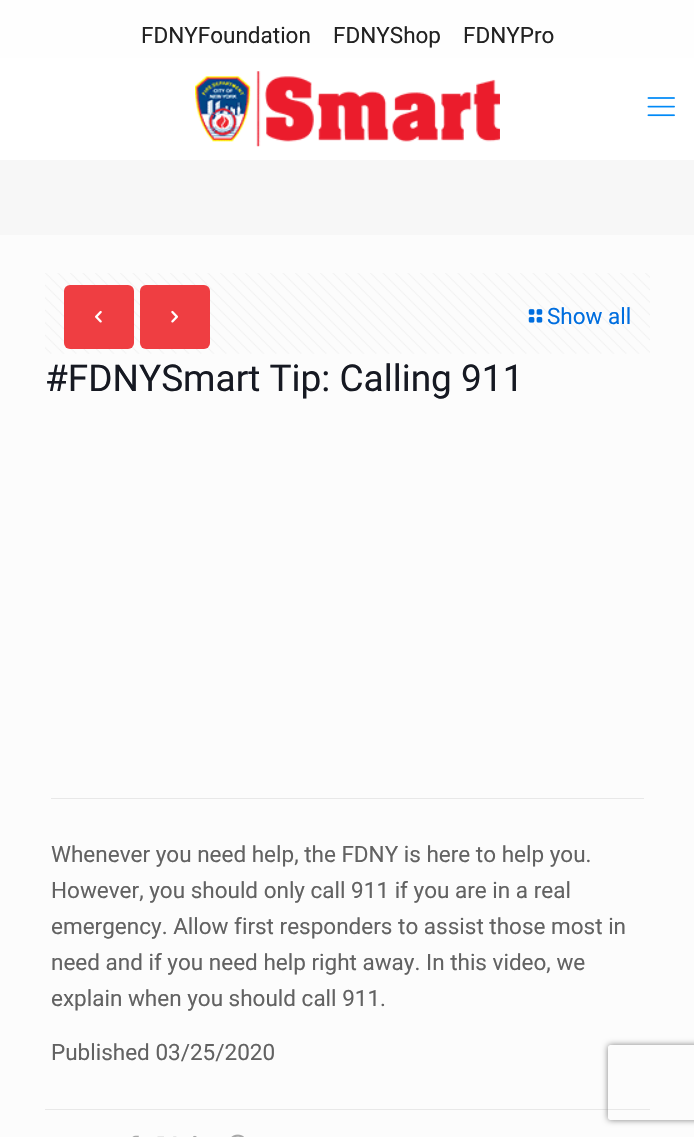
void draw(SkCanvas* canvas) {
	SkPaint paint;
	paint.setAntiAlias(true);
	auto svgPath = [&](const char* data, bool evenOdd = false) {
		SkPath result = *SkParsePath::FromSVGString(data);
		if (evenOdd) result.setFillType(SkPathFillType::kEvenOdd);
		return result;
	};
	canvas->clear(0xfffcfcfc);
	canvas->drawImageRect(SkImages::DeferredFromEncodedData(SkData::MakeFromFileName("img1.png")), SkRect::MakeXYWH(0, 0, 694, 58), SkSamplingOptions());
	SkFont f1(fontMgr->matchFamilyStyle("Roboto", SkFontStyle::Normal()), 22.5);
	f1.setSubpixel(true);
	paint.setColor(0xff222222);
	canvas->drawString("FDNYFoundation", 141, 43, f1, paint);
	canvas->drawString("FDNYShop", 333, 43, f1, paint);
	canvas->drawString("FDNYPro", 463, 43, f1, paint);
	paint.setColor(0xffffffff);
	canvas->drawRect(SkRect::MakeXYWH(0, 58, 694, 102), paint);
	canvas->drawImageRect(SkImages::DeferredFromEncodedData(SkData::MakeFromFileName("img2.png")), SkRect::MakeXYWH(195, 71, 305, 76), SkSamplingOptions());
	canvas->drawImageRect(SkImages::DeferredFromEncodedData(SkData::MakeFromFileName("img3.png")), SkRect::MakeXYWH(647, 97, 28, 20), SkSamplingOptions());
	paint.setColor(0xfff7f7f7);
	canvas->drawRect(SkRect::MakeXYWH(0, 160, 694, 75), paint);
	canvas->drawImageRect(SkImages::DeferredFromEncodedData(SkData::MakeFromFileName("img4.png")), SkRect::MakeXYWH(45, 273, 605, 81), SkSamplingOptions());
	paint.setColor(0xffef3e42);
	canvas->drawRoundRect(SkRect::MakeXYWH(64, 285, 70, 64), 6, 6, paint);
	canvas->drawImageRect(SkImages::DeferredFromEncodedData(SkData::MakeFromFileName("img5.png")), SkRect::MakeXYWH(95, 310, 7, 13), SkSamplingOptions());
	canvas->drawRoundRect(SkRect::MakeXYWH(140, 285, 70, 64), 6, 6, paint);
	canvas->drawImageRect(SkImages::DeferredFromEncodedData(SkData::MakeFromFileName("img6.png")), SkRect::MakeXYWH(171, 310, 7, 13), SkSamplingOptions());
	canvas->drawImageRect(SkImages::DeferredFromEncodedData(SkData::MakeFromFileName("img7.png")), SkRect::MakeXYWH(528, 309, 15, 14), SkSamplingOptions());
	paint.setColor(0xff006edf);
	canvas->drawString("Show all", 547, 324, f1, paint);
	SkFont f2(fontMgr->matchFamilyStyle("Roboto", SkFontStyle::Normal()), 37);
	f2.setSubpixel(true);
	paint.setColor(0xff161922);
	canvas->drawString("#FDNYSmart Tip: Calling 911", 45, 391, f2, paint);
	paint.setColor(0xffe8e8e8);
	canvas->drawRect(SkRect::MakeXYWH(51, 798, 593, 1), paint);
	paint.setColor(0xff626262);
	canvas->drawString("Whenever you need help, the FDNY is here to help you.", 51, 862, f1, paint);
	canvas->drawString("However, you should only call 911 if you are in a real", 51, 898, f1, paint);
	canvas->drawString("emergency. Allow first responders to assist those most in", 51, 934, f1, paint);
	canvas->drawString("need and if you need help right away. In this video, we", 51, 970, f1, paint);
	canvas->drawString("explain when you should call 911.", 51, 1006, f1, paint);
	canvas->drawString("Published 03/25/2020", 51, 1060, f1, paint);
	paint.setColor(0xffe8e8e8);
	canvas->drawRect(SkRect::MakeXYWH(45, 1109, 605, 1), paint);
	canvas->drawImageRect(SkImages::DeferredFromEncodedData(SkData::MakeFromFileName("img8.png")), SkRect::MakeXYWH(132, 1135, 7, 2), SkSamplingOptions());
	canvas->drawImageRect(SkImages::DeferredFromEncodedData(SkData::MakeFromFileName("img9.png")), SkRect::MakeXYWH(157, 1136, 20, 1), SkSamplingOptions());
	canvas->drawImageRect(SkImages::DeferredFromEncodedData(SkData::MakeFromFileName("img10.png")), SkRect::MakeXYWH(193, 1135, 4, 2), SkSamplingOptions());
	canvas->drawImageRect(SkImages::DeferredFromEncodedData(SkData::MakeFromFileName("img11.png")), SkRect::MakeXYWH(231, 1134, 13, 3), SkSamplingOptions());
	canvas->save();
	canvas->clipPath(svgPath("M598 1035H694V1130H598ZM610.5 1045H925.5C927 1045 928 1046 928 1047.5V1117.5C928 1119 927 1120 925.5 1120H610.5C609 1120 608 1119 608 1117.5V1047.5C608 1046 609 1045 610.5 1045Z", true), true);
	paint.setColor(0xff808080);
	paint.setMaskFilter(SkMaskFilter::MakeBlur(kNormal_SkBlurStyle, 3));
	canvas->drawRoundRect(SkRect::MakeXYWH(608, 1045, 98, 75), 2.5, 2.5, paint);
	paint.setMaskFilter(nullptr);
	canvas->restore();
}
